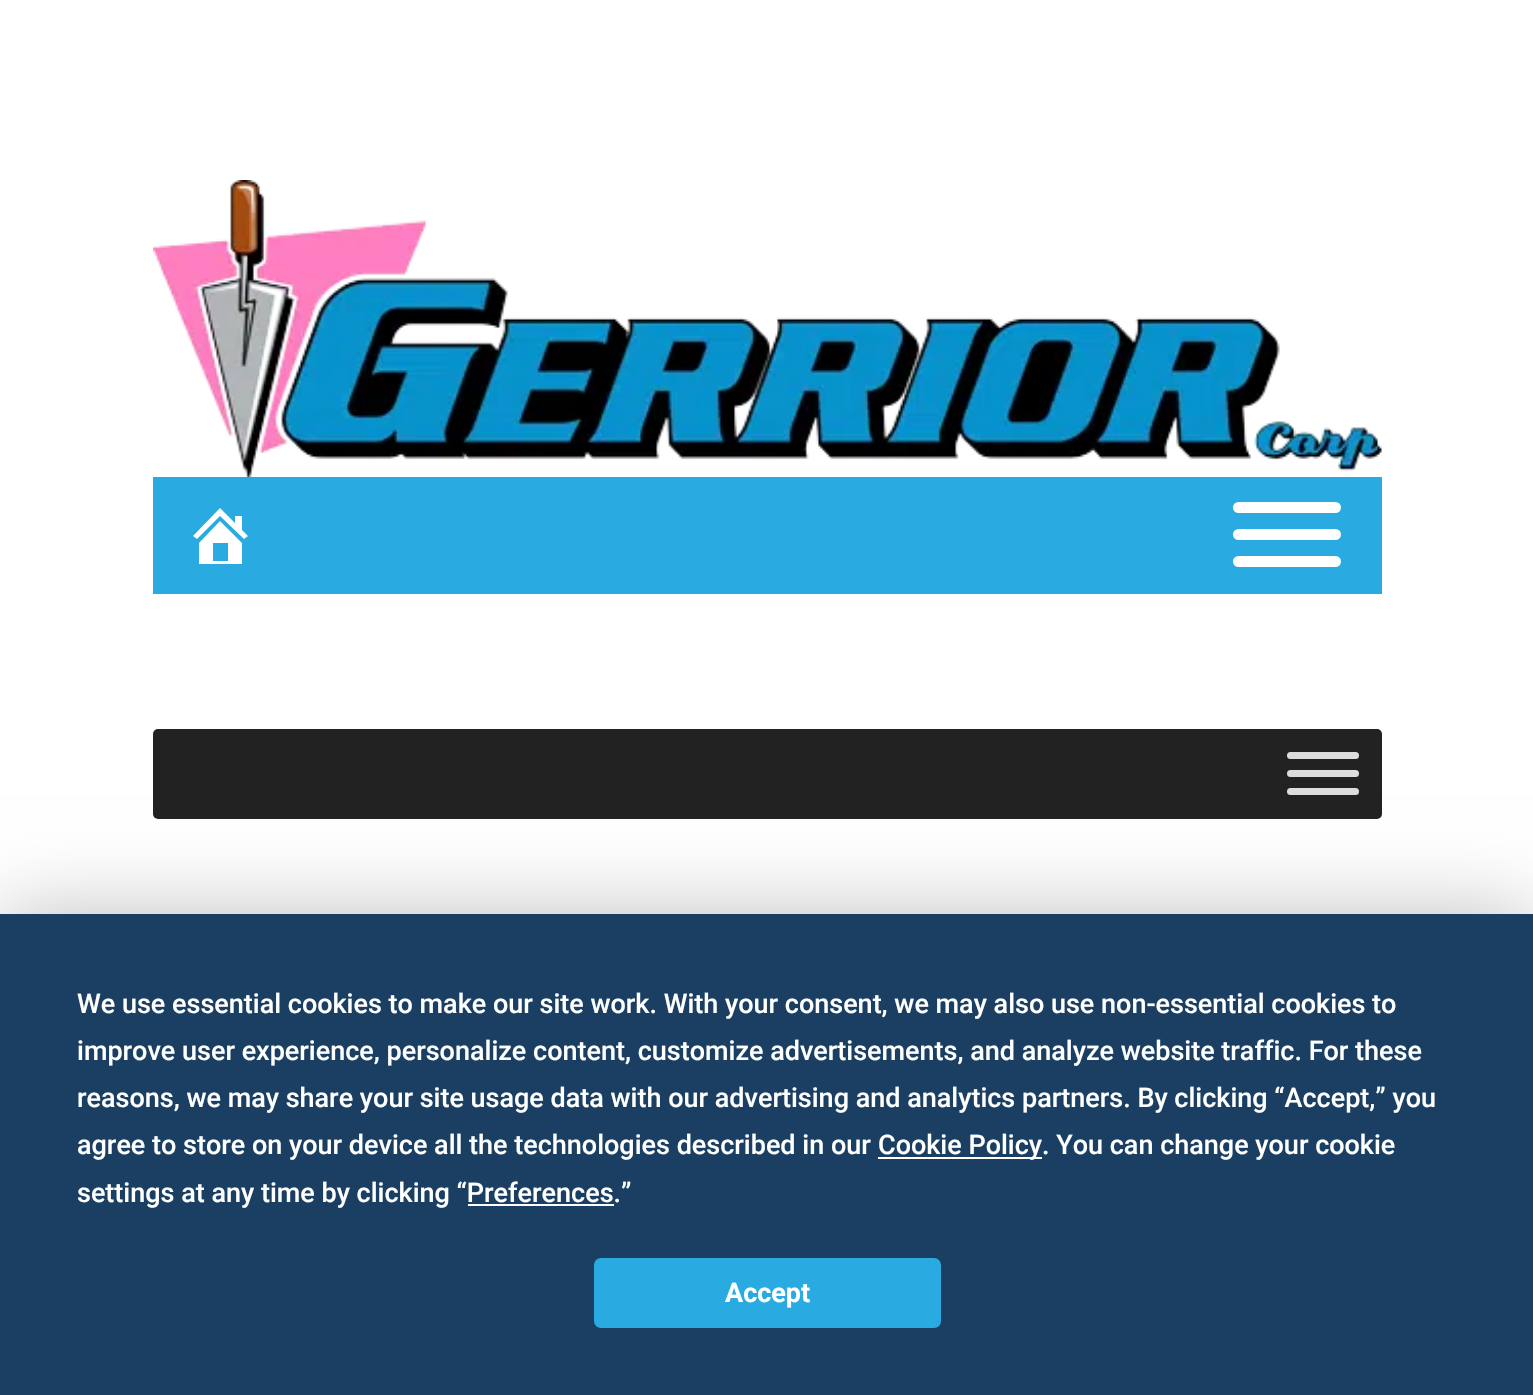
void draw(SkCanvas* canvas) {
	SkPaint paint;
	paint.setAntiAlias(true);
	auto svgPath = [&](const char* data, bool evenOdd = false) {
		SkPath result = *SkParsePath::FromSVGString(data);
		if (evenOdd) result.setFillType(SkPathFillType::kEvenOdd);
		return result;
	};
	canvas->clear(0xffffffff);
	canvas->drawImageRect(SkImages::DeferredFromEncodedData(SkData::MakeFromFileName("img1.png")), SkRect::MakeXYWH(153, 180, 1229, 297), SkSamplingOptions());
	paint.setColor(0xff29abe2);
	canvas->drawRect(SkRect::MakeXYWH(153, 477, 1229, 117), paint);
	paint.setColor(0xffffffff);
	canvas->drawPath(svgPath("M242 530L248 536L244 539L220 516L197 539L193 536L220 508L235 523V516H242ZM220 521L242 543V564H199V543ZM228 561V543H213V561Z"), paint);
	canvas->drawRoundRect(SkRect::MakeXYWH(1233, 502, 108, 11), 5.5, 5.5, paint);
	canvas->drawRoundRect(SkRect::MakeXYWH(1233, 529, 108, 11), 5.5, 5.5, paint);
	canvas->drawRoundRect(SkRect::MakeXYWH(1233, 556, 108, 11), 5.5, 5.5, paint);
	paint.setColor(0xff222222);
	canvas->drawRoundRect(SkRect::MakeXYWH(153, 729, 1229, 90), 5, 5, paint);
	paint.setColor(0xffdddddd);
	canvas->drawRoundRect(SkRect::MakeXYWH(1287, 752, 72, 7), 3.5, 3.5, paint);
	canvas->drawRoundRect(SkRect::MakeXYWH(1287, 770, 72, 7), 3.5, 3.5, paint);
	canvas->drawRoundRect(SkRect::MakeXYWH(1287, 788, 72, 7), 3.5, 3.5, paint);
	paint.setColor(0x40000000);
	paint.setMaskFilter(SkMaskFilter::MakeBlur(kNormal_SkBlurStyle, 39.5));
	canvas->drawRect(SkRect::MakeXYWH(0, 914, 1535, 481), paint);
	paint.setMaskFilter(nullptr);
	paint.setColor(0xff1a3f62);
	canvas->drawRect(SkRect::MakeXYWH(0, 914, 1533, 481), paint);
	SkFont f1(fontMgr->matchFamilyStyle("Roboto", SkFontStyle(500, SkFontStyle::kNormal_Width, SkFontStyle::kUpright_Slant)), 27);
	f1.setSubpixel(true);
	paint.setColor(0xffffffff);
	canvas->drawString("We use essential cookies to make our site work. With your consent, we may also use non-essential cookies to", 77, 1013, f1, paint);
	canvas->drawString("improve user experience, personalize content, customize advertisements, and analyze website traffic. For these", 77, 1060, f1, paint);
	canvas->drawString("reasons, we may share your site usage data with our advertising and analytics partners. By clicking “Accept,” you", 77, 1107, f1, paint);
	canvas->drawString("agree to store on your device all the technologies described in our", 77, 1154, f1, paint);
	canvas->drawRect(SkRect::MakeXYWH(878, 1157, 164, 2), paint);
	canvas->drawString("Cookie Policy. You can change your cookie", 878, 1154, f1, paint);
	canvas->drawString("settings at any time by clicking “Preferences.”", 77, 1202, f1, paint);
	canvas->drawRect(SkRect::MakeXYWH(468, 1204, 146, 2), paint);
	paint.setColor(0xff29abe2);
	canvas->drawRoundRect(SkRect::MakeXYWH(595, 1259, 345, 68), 6, 6, paint);
	paint.setStroke(true);
	paint.setStrokeWidth(2);
	canvas->drawRoundRect(SkRect::MakeXYWH(595, 1259, 345, 68), 6, 6, paint);
	SkFont f2(fontMgr->matchFamilyStyle("Roboto", SkFontStyle::Bold()), 27);
	f2.setSubpixel(true);
	paint.setStroke(false);
	paint.setColor(0xffffffff);
	canvas->drawString("Accept", 725, 1302, f2, paint);
}
